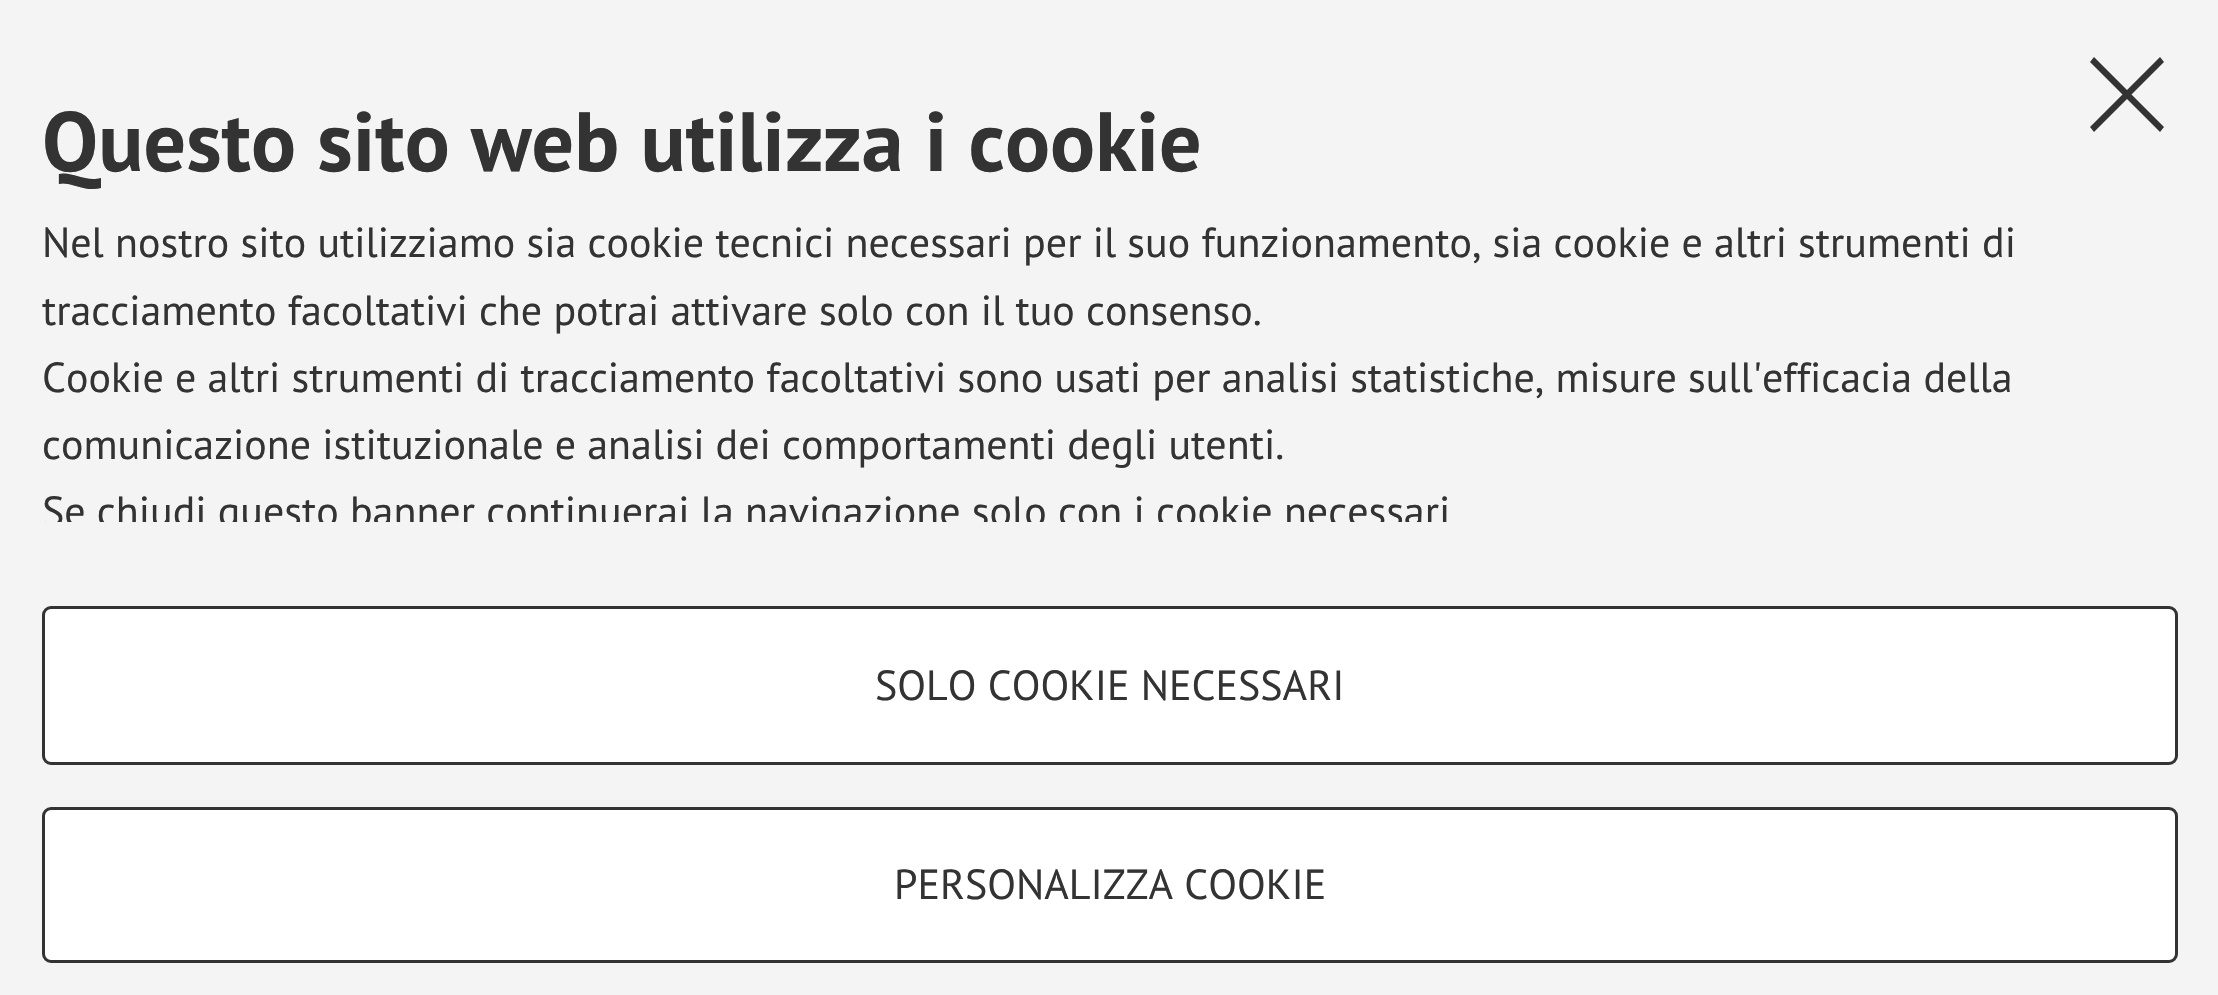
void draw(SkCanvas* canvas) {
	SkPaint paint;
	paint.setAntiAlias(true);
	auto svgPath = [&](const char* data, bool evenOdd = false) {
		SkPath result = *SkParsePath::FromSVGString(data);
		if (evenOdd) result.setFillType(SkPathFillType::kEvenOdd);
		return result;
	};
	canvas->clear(0xfff4f4f4);
	paint.setColor(0xff333333);
	canvas->drawPath(svgPath("M2160 57L2164 62L2094 132L2090 127Z"), paint);
	canvas->drawPath(svgPath("M2090 62L2094 57L2164 127L2160 132Z"), paint);
	SkFont f1(fontMgr->matchFamilyStyle("PT Sans", SkFontStyle::Bold()), 84);
	f1.setSubpixel(true);
	canvas->drawString("Questo sito web utilizza i cookie", 42, 171, f1, paint);
	SkFont f2(fontMgr->matchFamilyStyle("PT Sans", SkFontStyle::Normal()), 42);
	f2.setSubpixel(true);
	canvas->drawString("Nel nostro sito utilizziamo sia cookie tecnici necessari per il suo funzionamento, sia cookie e altri strumenti di", 42, 257, f2, paint);
	canvas->drawString("tracciamento facoltativi che potrai attivare solo con il tuo consenso.", 42, 325, f2, paint);
	canvas->drawString("Cookie e altri strumenti di tracciamento facoltativi sono usati per analisi statistiche, misure sull'efficacia della", 42, 392, f2, paint);
	canvas->drawString("comunicazione istituzionale e analisi dei comportamenti degli utenti.", 42, 459, f2, paint);
	canvas->save();
	canvas->clipRect(SkRect::MakeXYWH(42, 75, 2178, 447));
	canvas->drawString("Se chiudi questo banner continuerai la navigazione solo con i cookie necessari", 42, 526, f2, paint);
	canvas->restore();
	paint.setColor(0xffffffff);
	canvas->drawRoundRect(SkRect::MakeXYWH(43.5, 607.5, 2133, 156), 7.5, 7.5, paint);
	paint.setStroke(true);
	paint.setStrokeWidth(3);
	paint.setColor(0xff333333);
	canvas->drawRoundRect(SkRect::MakeXYWH(43.5, 607.5, 2133, 156), 7.5, 7.5, paint);
	paint.setStroke(false);
	canvas->drawString("SOLO COOKIE NECESSARI", 875, 700, f2, paint);
	paint.setColor(0xffffffff);
	canvas->drawRoundRect(SkRect::MakeXYWH(43.5, 808.5, 2133, 153), 7.5, 7.5, paint);
	paint.setStroke(true);
	paint.setColor(0xff333333);
	canvas->drawRoundRect(SkRect::MakeXYWH(43.5, 808.5, 2133, 153), 7.5, 7.5, paint);
	paint.setStroke(false);
	canvas->drawString("PERSONALIZZA COOKIE", 894, 899, f2, paint);
}
